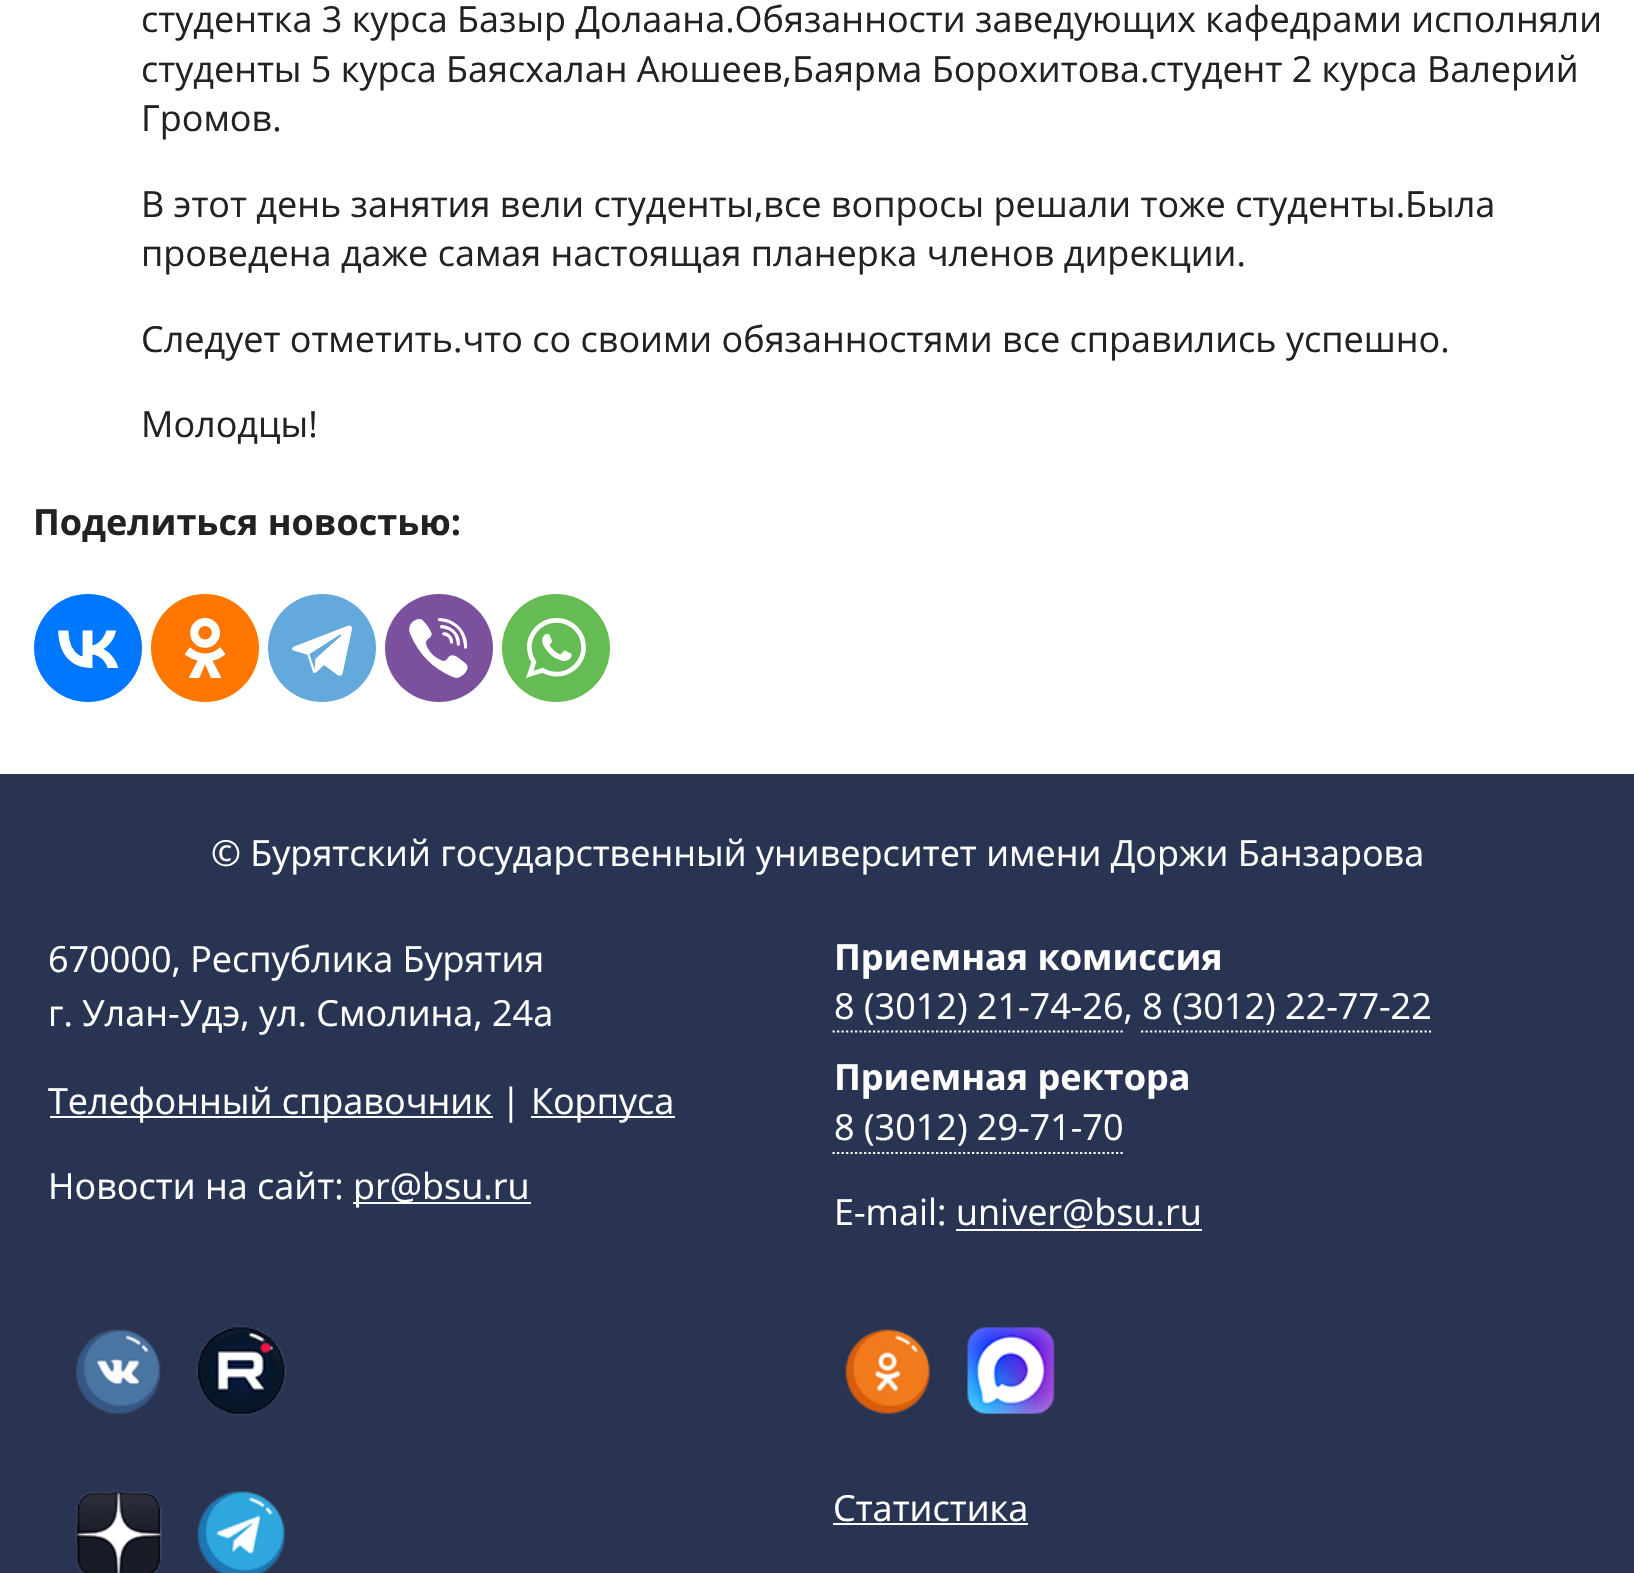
void draw(SkCanvas* canvas) {
	SkPaint paint;
	paint.setAntiAlias(true);
	auto svgPath = [&](const char* data, bool evenOdd = false) {
		SkPath result = *SkParsePath::FromSVGString(data);
		if (evenOdd) result.setFillType(SkPathFillType::kEvenOdd);
		return result;
	};
	canvas->clear(0xffffffff);
	SkFont f1(fontMgr->matchFamilyStyle("Open Sans", SkFontStyle::Normal()), 36);
	f1.setSubpixel(true);
	paint.setColor(0xff222222);
	canvas->drawString("студентка 3 курса Базыр Долаана.Обязанности заведующих кафедрами исполняли", 141, 32, f1, paint);
	canvas->drawString("студенты 5 курса Баясхалан Аюшеев,Баярма Борохитова.студент 2 курса Валерий", 141, 82, f1, paint);
	canvas->drawString("Громов.", 141, 131, f1, paint);
	canvas->drawString("В этот день занятия вели студенты,все вопросы решали тоже студенты.Была", 141, 217, f1, paint);
	canvas->drawString("проведена даже самая настоящая планерка членов дирекции.", 141, 266, f1, paint);
	canvas->drawString("Следует отметить.что со своими обязанностями все справились успешно.", 141, 352, f1, paint);
	canvas->drawString("Молодцы!", 141, 437, f1, paint);
	SkFont f2(fontMgr->matchFamilyStyle("Open Sans", SkFontStyle::Bold()), 36);
	f2.setSubpixel(true);
	canvas->drawString("Поделиться новостью:", 33, 535, f2, paint);
	paint.setColor(0xff0077ff);
	canvas->drawCircle(88, 648, 54, paint);
	canvas->drawImageRect(SkImages::DeferredFromEncodedData(SkData::MakeFromFileName("img1.png")), SkRect::MakeXYWH(58, 630, 61, 38), SkSamplingOptions());
	paint.setColor(0xffff7700);
	canvas->drawCircle(205, 648, 54, paint);
	canvas->drawImageRect(SkImages::DeferredFromEncodedData(SkData::MakeFromFileName("img2.png")), SkRect::MakeXYWH(185, 618, 41, 60), SkSamplingOptions());
	paint.setColor(0xff64a9dc);
	canvas->drawCircle(322, 648, 54, paint);
	canvas->drawImageRect(SkImages::DeferredFromEncodedData(SkData::MakeFromFileName("img3.png")), SkRect::MakeXYWH(292, 625, 60, 51), SkSamplingOptions());
	paint.setColor(0xff7b519d);
	canvas->drawCircle(439, 648, 54, paint);
	canvas->drawImageRect(SkImages::DeferredFromEncodedData(SkData::MakeFromFileName("img4.png")), SkRect::MakeXYWH(409, 618, 59, 60), SkSamplingOptions());
	paint.setColor(0xff65bc54);
	canvas->drawCircle(556, 648, 54, paint);
	canvas->drawImageRect(SkImages::DeferredFromEncodedData(SkData::MakeFromFileName("img5.png")), SkRect::MakeXYWH(526, 618, 60, 60), SkSamplingOptions());
	paint.setColor(0xff293352);
	canvas->drawRect(SkRect::MakeXYWH(0, 774, 1634, 799), paint);
	paint.setColor(0xffffffff);
	canvas->drawString("© Бурятский государственный университет имени Доржи Банзарова", 211, 866, f1, paint);
	canvas->drawString("670000, Республика Бурятия", 48, 972, f1, paint);
	canvas->drawString("г. Улан-Удэ, ул. Смолина, 24а", 48, 1026, f1, paint);
	canvas->drawRect(SkRect::MakeXYWH(50, 1116, 443, 2), paint);
	canvas->drawString("Телефонный справочник |", 48, 1114, f1, paint);
	canvas->drawRect(SkRect::MakeXYWH(531, 1116, 144, 2), paint);
	canvas->drawString("Корпуса", 531, 1114, f1, paint);
	canvas->drawString("Новости на сайт:", 48, 1199, f1, paint);
	canvas->drawRect(SkRect::MakeXYWH(353, 1202, 178, 2), paint);
	canvas->drawString("pr@bsu.ru", 353, 1199, f1, paint);
	canvas->drawString("Приемная комиссия", 834, 970, f2, paint);
	canvas->drawString("8 (3012) 21-74-26, 8 (3012) 22-77-22", 834, 1019, f1, paint);
	paint.setStroke(true);
	paint.setStrokeWidth(2.2);
	paint.setPathEffect(SkDashPathEffect::Make({{2.25f, 2.25f}}, 0));
	canvas->drawPath(svgPath("M832.5 1031.5H1123"), paint);
	paint.setPathEffect(nullptr);
	paint.setPathEffect(SkDashPathEffect::Make({{2.25f, 2.25f}}, 0));
	canvas->drawPath(svgPath("M1141 1031.5H1431"), paint);
	paint.setPathEffect(nullptr);
	paint.setStroke(false);
	canvas->drawString("Приемная ректора", 834, 1090, f2, paint);
	canvas->drawString("8 (3012) 29-71-70", 834, 1140, f1, paint);
	paint.setStroke(true);
	paint.setPathEffect(SkDashPathEffect::Make({{2.25f, 2.25f}}, 0));
	canvas->drawPath(svgPath("M832.5 1153H1123"), paint);
	paint.setPathEffect(nullptr);
	paint.setStroke(false);
	canvas->drawString("E-mail: univer@bsu.ru", 834, 1225, f1, paint);
	canvas->drawRect(SkRect::MakeXYWH(956, 1229, 246, 2), paint);
	canvas->drawImageRect(SkImages::DeferredFromEncodedData(SkData::MakeFromFileName("img6.png")), SkRect::MakeXYWH(76, 1329, 85, 85), SkSamplingOptions());
	canvas->drawImageRect(SkImages::DeferredFromEncodedData(SkData::MakeFromFileName("img7.png")), SkRect::MakeXYWH(194, 1325, 93, 93), SkSamplingOptions());
	canvas->drawImageRect(SkImages::DeferredFromEncodedData(SkData::MakeFromFileName("img8.png")), SkRect::MakeXYWH(845, 1329, 85, 85), SkSamplingOptions());
	canvas->drawImageRect(SkImages::DeferredFromEncodedData(SkData::MakeFromFileName("img9.png")), SkRect::MakeXYWH(967, 1327, 88, 87), SkSamplingOptions());
	canvas->drawImageRect(SkImages::DeferredFromEncodedData(SkData::MakeFromFileName("img10.png")), SkRect::MakeXYWH(74, 1490, 88, 83), SkSamplingOptions());
	canvas->drawImageRect(SkImages::DeferredFromEncodedData(SkData::MakeFromFileName("img11.png")), SkRect::MakeXYWH(197, 1491, 88, 82), SkSamplingOptions());
	canvas->drawString("Статистика", 833, 1521, f1, paint);
	canvas->drawRect(SkRect::MakeXYWH(833, 1523, 195, 2), paint);
}
